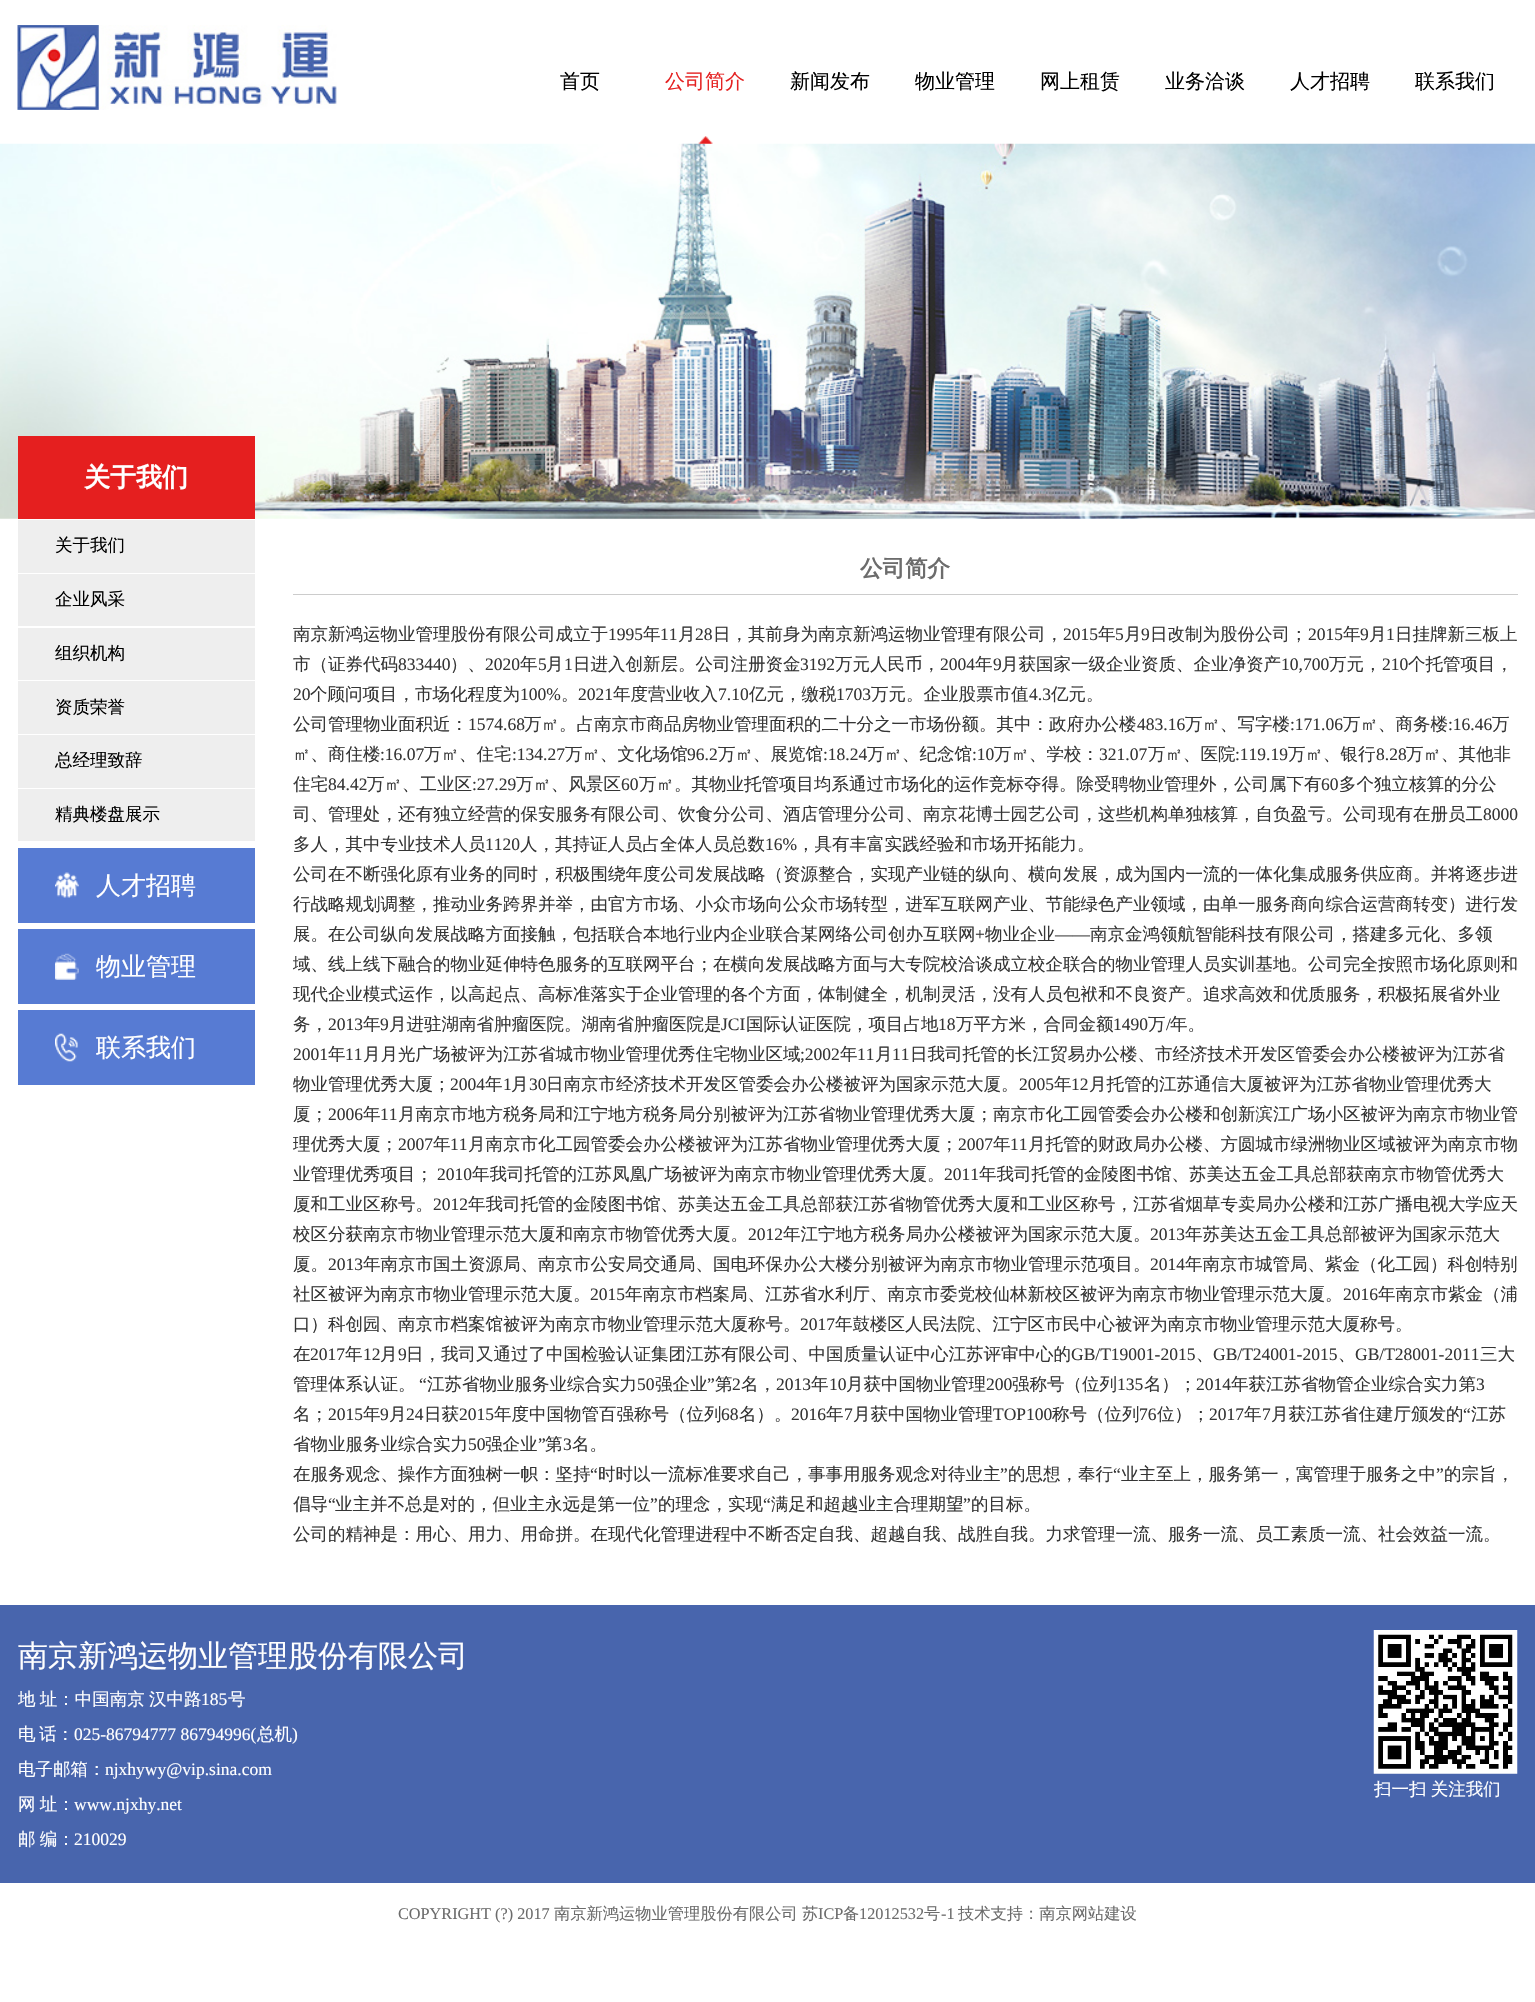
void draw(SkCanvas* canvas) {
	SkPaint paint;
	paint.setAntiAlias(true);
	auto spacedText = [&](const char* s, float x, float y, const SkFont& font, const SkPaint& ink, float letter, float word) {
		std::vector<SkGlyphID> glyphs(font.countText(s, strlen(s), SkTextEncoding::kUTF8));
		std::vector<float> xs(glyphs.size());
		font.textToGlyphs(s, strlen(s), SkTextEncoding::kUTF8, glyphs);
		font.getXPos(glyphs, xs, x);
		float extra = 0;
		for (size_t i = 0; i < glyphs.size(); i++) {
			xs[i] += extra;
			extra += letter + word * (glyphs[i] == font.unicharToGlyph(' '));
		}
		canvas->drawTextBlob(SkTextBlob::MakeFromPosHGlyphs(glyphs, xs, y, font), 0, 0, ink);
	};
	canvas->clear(0xffffffff);
	canvas->drawImageRect(SkImages::DeferredFromEncodedData(SkData::MakeFromFileName("img1.png")), SkRect::MakeXYWH(17, 25, 320, 85), SkSamplingOptions());
	SkFont f1(fontMgr->matchFamilyStyle("WenQuanYi Zen Hei", SkFontStyle(500, SkFontStyle::kNormal_Width, SkFontStyle::kUpright_Slant)), 20);
	f1.setSubpixel(true);
	paint.setColor(0xff000000);
	canvas->drawString("首页", 560, 88, f1, paint);
	canvas->drawImageRect(SkImages::DeferredFromEncodedData(SkData::MakeFromFileName("img3.png")), SkRect::MakeXYWH(0, 143, 1535, 376), SkSamplingOptions());
	canvas->drawImageRect(SkImages::DeferredFromEncodedData(SkData::MakeFromFileName("img2.png")), SkRect::MakeXYWH(698, 136, 15, 8), SkSamplingOptions());
	paint.setColor(0xffe52222);
	canvas->drawString("公司简介", 665, 88, f1, paint);
	paint.setColor(0xff000000);
	canvas->drawString("新闻发布", 790, 88, f1, paint);
	canvas->drawString("物业管理", 915, 88, f1, paint);
	canvas->drawString("网上租赁", 1040, 88, f1, paint);
	canvas->drawString("业务洽谈", 1165, 88, f1, paint);
	canvas->drawString("人才招聘", 1290, 88, f1, paint);
	canvas->drawString("联系我们", 1415, 88, f1, paint);
	paint.setColor(0xffe51f1f);
	canvas->drawRect(SkRect::MakeXYWH(18, 436, 237, 83), paint);
	SkFont f2(fontMgr->matchFamilyStyle("WenQuanYi Zen Hei", SkFontStyle::Bold()), 26);
	f2.setSubpixel(true);
	paint.setColor(0xffffffff);
	canvas->drawString("关于我们", 84, 486, f2, paint);
	paint.setColor(0xffeeeeee);
	canvas->drawRect(SkRect::MakeXYWH(18, 520, 237, 53), paint);
	SkFont f3(fontMgr->matchFamilyStyle("WenQuanYi Zen Hei", SkFontStyle(500, SkFontStyle::kNormal_Width, SkFontStyle::kUpright_Slant)), 17.5);
	f3.setSubpixel(true);
	paint.setColor(0xff000000);
	canvas->drawString("关于我们", 55, 551, f3, paint);
	paint.setColor(0xffeeeeee);
	canvas->drawRect(SkRect::MakeXYWH(18, 574, 237, 52), paint);
	paint.setColor(0xff000000);
	canvas->drawString("企业风采", 55, 605, f3, paint);
	paint.setColor(0xffeeeeee);
	canvas->drawRect(SkRect::MakeXYWH(18, 628, 237, 52), paint);
	paint.setColor(0xff000000);
	canvas->drawString("组织机构", 55, 659, f3, paint);
	paint.setColor(0xffeeeeee);
	canvas->drawRect(SkRect::MakeXYWH(18, 681, 237, 53), paint);
	paint.setColor(0xff000000);
	canvas->drawString("资质荣誉", 55, 713, f3, paint);
	paint.setColor(0xffeeeeee);
	canvas->drawRect(SkRect::MakeXYWH(18, 735, 237, 53), paint);
	paint.setColor(0xff000000);
	canvas->drawString("总经理致辞", 55, 766, f3, paint);
	paint.setColor(0xffeeeeee);
	canvas->drawRect(SkRect::MakeXYWH(18, 789, 237, 52), paint);
	paint.setColor(0xff000000);
	canvas->drawString("精典楼盘展示", 55, 820, f3, paint);
	paint.setColor(0xff577bd3);
	canvas->drawRect(SkRect::MakeXYWH(18, 848, 237, 75), paint);
	canvas->drawImageRect(SkImages::DeferredFromEncodedData(SkData::MakeFromFileName("img4.png")), SkRect::MakeXYWH(55, 872, 24, 26), SkSamplingOptions());
	SkFont f4(fontMgr->matchFamilyStyle("WenQuanYi Zen Hei", SkFontStyle(500, SkFontStyle::kNormal_Width, SkFontStyle::kUpright_Slant)), 25);
	f4.setSubpixel(true);
	paint.setColor(0xffffffff);
	canvas->drawString("人才招聘", 96, 894, f4, paint);
	paint.setColor(0xff577bd3);
	canvas->drawRect(SkRect::MakeXYWH(18, 929, 237, 75), paint);
	canvas->drawImageRect(SkImages::DeferredFromEncodedData(SkData::MakeFromFileName("img5.png")), SkRect::MakeXYWH(55, 953, 24, 27), SkSamplingOptions());
	paint.setColor(0xffffffff);
	canvas->drawString("物业管理", 96, 975, f4, paint);
	paint.setColor(0xff577bd3);
	canvas->drawRect(SkRect::MakeXYWH(18, 1010, 237, 75), paint);
	canvas->drawImageRect(SkImages::DeferredFromEncodedData(SkData::MakeFromFileName("img6.png")), SkRect::MakeXYWH(55, 1033, 23, 29), SkSamplingOptions());
	paint.setColor(0xffffffff);
	canvas->drawString("联系我们", 96, 1056, f4, paint);
	paint.setColor(0xffcccccc);
	canvas->drawRect(SkRect::MakeXYWH(293, 594, 1225, 1), paint);
	SkFont f5(fontMgr->matchFamilyStyle("WenQuanYi Zen Hei", SkFontStyle::Bold()), 22.5);
	f5.setSubpixel(true);
	paint.setColor(0xff6c6c6c);
	canvas->drawString("公司简介", 860, 576, f5, paint);
	paint.setColor(0xff353535);
	canvas->drawString("南京新鸿运物业管理股份有限公司成立于", 293, 640, f3, paint);
	SkFont f6(fontMgr->matchFamilyStyle("Liberation Serif", SkFontStyle::Normal()), 17.5);
	f6.setSubpixel(true);
	canvas->drawString("1995", 608, 640, f6, paint);
	canvas->drawString("年", 643, 640, f3, paint);
	canvas->drawString("11", 660, 640, f6, paint);
	canvas->drawString("月", 678, 640, f3, paint);
	canvas->drawString("28", 695, 640, f6, paint);
	canvas->drawString("日，其前身为南京新鸿运物业管理有限公司，", 713, 640, f3, paint);
	canvas->drawString("2015", 1063, 640, f6, paint);
	canvas->drawString("年", 1098, 640, f3, paint);
	canvas->drawString("5", 1115, 640, f6, paint);
	canvas->drawString("月", 1124, 640, f3, paint);
	canvas->drawString("9", 1141, 640, f6, paint);
	canvas->drawString("日改制为股份公司；", 1150, 640, f3, paint);
	canvas->drawString("2015", 1308, 640, f6, paint);
	canvas->drawString("年", 1343, 640, f3, paint);
	canvas->drawString("9", 1360, 640, f6, paint);
	canvas->drawString("月", 1369, 640, f3, paint);
	canvas->drawString("1", 1386, 640, f6, paint);
	canvas->drawString("日挂牌新三板上", 1395, 640, f3, paint);
	canvas->drawString("市（证券代码", 293, 670, f3, paint);
	canvas->drawString("833440", 398, 670, f6, paint);
	canvas->drawString("）、", 450, 670, f3, paint);
	canvas->drawString("2020", 485, 670, f6, paint);
	canvas->drawString("年", 520, 670, f3, paint);
	canvas->drawString("5", 538, 670, f6, paint);
	canvas->drawString("月", 546, 670, f3, paint);
	canvas->drawString("1", 564, 670, f6, paint);
	canvas->drawString("日进入创新层。公司注册资金", 573, 670, f3, paint);
	canvas->drawString("3192", 800, 670, f6, paint);
	canvas->drawString("万元人民币，", 835, 670, f3, paint);
	canvas->drawString("2004", 940, 670, f6, paint);
	canvas->drawString("年", 975, 670, f3, paint);
	canvas->drawString("9", 993, 670, f6, paint);
	canvas->drawString("月获国家一级企业资质、企业净资产", 1001, 670, f3, paint);
	canvas->drawString("10,700", 1281, 670, f6, paint);
	canvas->drawString("万元，", 1329, 670, f3, paint);
	canvas->drawString("210", 1382, 670, f6, paint);
	canvas->drawString("个托管项目，", 1408, 670, f3, paint);
	canvas->drawString("20", 293, 700, f6, paint);
	canvas->drawString("个顾问项目，市场化程度为", 310, 700, f3, paint);
	canvas->drawString("100%", 520, 700, f6, paint);
	canvas->drawString("。", 561, 700, f3, paint);
	canvas->drawString("2021", 578, 700, f6, paint);
	canvas->drawString("年度营业收入", 613, 700, f3, paint);
	canvas->drawString("7.10", 718, 700, f6, paint);
	canvas->drawString("亿元，缴税", 749, 700, f3, paint);
	canvas->drawString("1703", 836, 700, f6, paint);
	canvas->drawString("万元。企业股票市值", 871, 700, f3, paint);
	canvas->drawString("4.3", 1029, 700, f6, paint);
	canvas->drawString("亿元。", 1051, 700, f3, paint);
	canvas->drawString("公司管理物业面积近：", 293, 730, f3, paint);
	canvas->drawString("1574.68", 468, 730, f6, paint);
	canvas->drawString("万㎡。占南京市商品房物业管理面积的二十分之一市场份额。其中：政府办公楼", 524, 730, f3, paint);
	canvas->drawString("483.16", 1137, 730, f6, paint);
	canvas->drawString("万㎡、写字楼", 1185, 730, f3, paint);
	canvas->drawString(":171.06", 1290, 730, f6, paint);
	canvas->drawString("万㎡、商务楼", 1343, 730, f3, paint);
	canvas->drawString(":16.46", 1448, 730, f6, paint);
	canvas->drawString("万", 1492, 730, f3, paint);
	canvas->drawString("㎡、商住楼", 293, 760, f3, paint);
	canvas->drawString(":16.07", 380, 760, f6, paint);
	canvas->drawString("万㎡、住宅", 424, 760, f3, paint);
	canvas->drawString(":134.27", 512, 760, f6, paint);
	canvas->drawString("万㎡、文化场馆", 565, 760, f3, paint);
	canvas->drawString("96.2", 687, 760, f6, paint);
	canvas->drawString("万㎡、展览馆", 718, 760, f3, paint);
	canvas->drawString(":18.24", 823, 760, f6, paint);
	canvas->drawString("万㎡、纪念馆", 867, 760, f3, paint);
	canvas->drawString(":10", 972, 760, f6, paint);
	canvas->drawString("万㎡、学校：", 994, 760, f3, paint);
	canvas->drawString("321.07", 1099, 760, f6, paint);
	canvas->drawString("万㎡、医院", 1148, 760, f3, paint);
	canvas->drawString(":119.19", 1235, 760, f6, paint);
	canvas->drawString("万㎡、银行", 1288, 760, f3, paint);
	canvas->drawString("8.28", 1376, 760, f6, paint);
	canvas->drawString("万㎡、其他非", 1406, 760, f3, paint);
	canvas->drawString("住宅", 293, 790, f3, paint);
	canvas->drawString("84.42", 328, 790, f6, paint);
	canvas->drawString("万㎡、工业区", 367, 790, f3, paint);
	canvas->drawString(":27.29", 472, 790, f6, paint);
	canvas->drawString("万㎡、风景区", 516, 790, f3, paint);
	canvas->drawString("60", 621, 790, f6, paint);
	canvas->drawString("万㎡。其物业托管项目均系通过市场化的运作竞标夺得。除受聘物业管理外，公司属下有", 639, 790, f3, paint);
	canvas->drawString("60", 1321, 790, f6, paint);
	canvas->drawString("多个独立核算的分公", 1339, 790, f3, paint);
	canvas->drawString("司、管理处，还有独立经营的保安服务有限公司、饮食分公司、酒店管理分公司、南京花博士园艺公司，这些机构单独核算，自负盈亏。公司现有在册员工", 293, 820, f3, paint);
	canvas->drawString("8000", 1483, 820, f6, paint);
	canvas->drawString("多人，其中专业技术人员", 293, 850, f3, paint);
	canvas->drawString("1120", 485, 850, f6, paint);
	canvas->drawString("人，其持证人员占全体人员总数", 520, 850, f3, paint);
	canvas->drawString("16%", 765, 850, f6, paint);
	canvas->drawString("，具有丰富实践经验和市场开拓能力。", 797, 850, f3, paint);
	canvas->drawString("公司在不断强化原有业务的同时，积极围绕年度公司发展战略（资源整合，实现产业链的纵向、横向发展，成为国内一流的一体化集成服务供应商。并将逐步进", 293, 880, f3, paint);
	canvas->drawString("行战略规划调整，推动业务跨界并举，由官方市场、小众市场向公众市场转型，进军互联网产业、节能绿色产业领域，由单一服务商向综合运营商转变）进行发", 293, 910, f3, paint);
	canvas->drawString("展。在公司纵向发展战略方面接触，包括联合本地行业内企业联合某网络公司创办互联网", 293, 940, f3, paint);
	canvas->drawString("+", 975, 940, f6, paint);
	canvas->drawString("物业企业", 985, 940, f3, paint);
	canvas->drawString("——", 1055, 940, f6, paint);
	canvas->drawString("南京金鸿领航智能科技有限公司，搭建多元化、多领", 1090, 940, f3, paint);
	canvas->drawString("域、线上线下融合的物业延伸特色服务的互联网平台；在横向发展战略方面与大专院校洽谈成立校企联合的物业管理人员实训基地。公司完全按照市场化原则和", 293, 970, f3, paint);
	canvas->drawString("现代企业模式运作，以高起点、高标准落实于企业管理的各个方面，体制健全，机制灵活，没有人员包袱和不良资产。追求高效和优质服务，积极拓展省外业", 293, 1000, f3, paint);
	canvas->drawString("务，", 293, 1030, f3, paint);
	canvas->drawString("2013", 328, 1030, f6, paint);
	canvas->drawString("年", 363, 1030, f3, paint);
	canvas->drawString("9", 380, 1030, f6, paint);
	canvas->drawString("月进驻湖南省肿瘤医院。湖南省肿瘤医院是", 389, 1030, f3, paint);
	canvas->drawString("JCI", 721, 1030, f6, paint);
	canvas->drawString("国际认证医院，项目占地", 746, 1030, f3, paint);
	canvas->drawString("18", 938, 1030, f6, paint);
	canvas->drawString("万平方米，合同金额", 956, 1030, f3, paint);
	canvas->drawString("1490", 1113, 1030, f6, paint);
	canvas->drawString("万", 1148, 1030, f3, paint);
	canvas->drawString("/", 1166, 1030, f6, paint);
	canvas->drawString("年。", 1170, 1030, f3, paint);
	canvas->drawString("2001", 293, 1060, f6, paint);
	canvas->drawString("年", 328, 1060, f3, paint);
	canvas->drawString("11", 345, 1060, f6, paint);
	canvas->drawString("月月光广场被评为江苏省城市物业管理优秀住宅物业区域", 363, 1060, f3, paint);
	canvas->drawString(";2002", 800, 1060, f6, paint);
	canvas->drawString("年", 840, 1060, f3, paint);
	canvas->drawString("11", 857, 1060, f6, paint);
	canvas->drawString("月", 875, 1060, f3, paint);
	canvas->drawString("11", 892, 1060, f6, paint);
	canvas->drawString("日我司托管的长江贸易办公楼、市经济技术开发区管委会办公楼被评为江苏省", 910, 1060, f3, paint);
	canvas->drawString("物业管理优秀大厦；", 293, 1090, f3, paint);
	canvas->drawString("2004", 450, 1090, f6, paint);
	canvas->drawString("年", 485, 1090, f3, paint);
	canvas->drawString("1", 503, 1090, f6, paint);
	canvas->drawString("月", 511, 1090, f3, paint);
	canvas->drawString("30", 529, 1090, f6, paint);
	canvas->drawString("日南京市经济技术开发区管委会办公楼被评为国家示范大厦。", 546, 1090, f3, paint);
	canvas->drawString("2005", 1019, 1090, f6, paint);
	canvas->drawString("年", 1054, 1090, f3, paint);
	canvas->drawString("12", 1071, 1090, f6, paint);
	canvas->drawString("月托管的江苏通信大厦被评为江苏省物业管理优秀大", 1089, 1090, f3, paint);
	canvas->drawString("厦；", 293, 1120, f3, paint);
	canvas->drawString("2006", 328, 1120, f6, paint);
	canvas->drawString("年", 363, 1120, f3, paint);
	canvas->drawString("11", 380, 1120, f6, paint);
	canvas->drawString("月南京市地方税务局和江宁地方税务局分别被评为江苏省物业管理优秀大厦；南京市化工园管委会办公楼和创新滨江广场小区被评为南京市物业管", 398, 1120, f3, paint);
	canvas->drawString("理优秀大厦；", 293, 1150, f3, paint);
	canvas->drawString("2007", 398, 1150, f6, paint);
	canvas->drawString("年", 433, 1150, f3, paint);
	canvas->drawString("11", 450, 1150, f6, paint);
	canvas->drawString("月南京市化工园管委会办公楼被评为江苏省物业管理优秀大厦；", 468, 1150, f3, paint);
	canvas->drawString("2007", 958, 1150, f6, paint);
	canvas->drawString("年", 993, 1150, f3, paint);
	canvas->drawString("11", 1010, 1150, f6, paint);
	canvas->drawString("月托管的财政局办公楼、方圆城市绿洲物业区域被评为南京市物", 1028, 1150, f3, paint);
	canvas->drawString("业管理优秀项目；", 293, 1180, f3, paint);
	canvas->drawString("2010", 437, 1180, f6, paint);
	canvas->drawString("年我司托管的江苏凤凰广场被评为南京市物业管理优秀大厦。", 472, 1180, f3, paint);
	canvas->drawString("2011", 944, 1180, f6, paint);
	canvas->drawString("年我司托管的金陵图书馆、苏美达五金工具总部获南京市物管优秀大", 979, 1180, f3, paint);
	canvas->drawString("厦和工业区称号。", 293, 1210, f3, paint);
	canvas->drawString("2012", 433, 1210, f6, paint);
	canvas->drawString("年我司托管的金陵图书馆、苏美达五金工具总部获江苏省物管优秀大厦和工业区称号，江苏省烟草专卖局办公楼和江苏广播电视大学应天", 468, 1210, f3, paint);
	canvas->drawString("校区分获南京市物业管理示范大厦和南京市物管优秀大厦。", 293, 1240, f3, paint);
	canvas->drawString("2012", 748, 1240, f6, paint);
	canvas->drawString("年江宁地方税务局办公楼被评为国家示范大厦。", 783, 1240, f3, paint);
	canvas->drawString("2013", 1150, 1240, f6, paint);
	canvas->drawString("年苏美达五金工具总部被评为国家示范大", 1185, 1240, f3, paint);
	canvas->drawString("厦。", 293, 1270, f3, paint);
	canvas->drawString("2013", 328, 1270, f6, paint);
	canvas->drawString("年南京市国土资源局、南京市公安局交通局、国电环保办公大楼分别被评为南京市物业管理示范项目。", 363, 1270, f3, paint);
	canvas->drawString("2014", 1150, 1270, f6, paint);
	canvas->drawString("年南京市城管局、紫金（化工园）科创特别", 1185, 1270, f3, paint);
	canvas->drawString("社区被评为南京市物业管理示范大厦。", 293, 1300, f3, paint);
	canvas->drawString("2015", 590, 1300, f6, paint);
	canvas->drawString("年南京市档案局、江苏省水利厅、南京市委党校仙林新校区被评为南京市物业管理示范大厦。", 625, 1300, f3, paint);
	canvas->drawString("2016", 1343, 1300, f6, paint);
	canvas->drawString("年南京市紫金（浦", 1378, 1300, f3, paint);
	canvas->drawString("口）科创园、南京市档案馆被评为南京市物业管理示范大厦称号。", 293, 1330, f3, paint);
	canvas->drawString("2017", 800, 1330, f6, paint);
	canvas->drawString("年鼓楼区人民法院、江宁区市民中心被评为南京市物业管理示范大厦称号。", 835, 1330, f3, paint);
	canvas->drawString("在", 293, 1360, f3, paint);
	canvas->drawString("2017", 310, 1360, f6, paint);
	canvas->drawString("年", 345, 1360, f3, paint);
	canvas->drawString("12", 363, 1360, f6, paint);
	canvas->drawString("月", 380, 1360, f3, paint);
	canvas->drawString("9", 398, 1360, f6, paint);
	canvas->drawString("日，我司又通过了中国检验认证集团江苏有限公司、中国质量认证中心江苏评审中心的", 406, 1360, f3, paint);
	canvas->drawString("GB/T19001-2015", 1071, 1360, f6, paint);
	canvas->drawString("、", 1196, 1360, f3, paint);
	canvas->drawString("GB/T24001-2015", 1213, 1360, f6, paint);
	canvas->drawString("、", 1338, 1360, f3, paint);
	canvas->drawString("GB/T28001-2011", 1355, 1360, f6, paint);
	canvas->drawString("三大", 1480, 1360, f3, paint);
	canvas->drawString("管理体系认证。", 293, 1390, f3, paint);
	canvas->drawString("“", 419, 1390, f6, paint);
	canvas->drawString("江苏省物业服务业综合实力", 427, 1390, f3, paint);
	canvas->drawString("50", 637, 1390, f6, paint);
	canvas->drawString("强企业", 655, 1390, f3, paint);
	canvas->drawString("”", 707, 1390, f6, paint);
	canvas->drawString("第", 715, 1390, f3, paint);
	canvas->drawString("2", 732, 1390, f6, paint);
	canvas->drawString("名，", 741, 1390, f3, paint);
	canvas->drawString("2013", 776, 1390, f6, paint);
	canvas->drawString("年", 811, 1390, f3, paint);
	canvas->drawString("10", 829, 1390, f6, paint);
	canvas->drawString("月获中国物业管理", 846, 1390, f3, paint);
	canvas->drawString("200", 986, 1390, f6, paint);
	canvas->drawString("强称号（位列", 1012, 1390, f3, paint);
	canvas->drawString("135", 1117, 1390, f6, paint);
	canvas->drawString("名）；", 1144, 1390, f3, paint);
	canvas->drawString("2014", 1196, 1390, f6, paint);
	canvas->drawString("年获江苏省物管企业综合实力第", 1231, 1390, f3, paint);
	canvas->drawString("3", 1476, 1390, f6, paint);
	canvas->drawString("名；", 293, 1420, f3, paint);
	canvas->drawString("2015", 328, 1420, f6, paint);
	canvas->drawString("年", 363, 1420, f3, paint);
	canvas->drawString("9", 380, 1420, f6, paint);
	canvas->drawString("月", 389, 1420, f3, paint);
	canvas->drawString("24", 406, 1420, f6, paint);
	canvas->drawString("日获", 424, 1420, f3, paint);
	canvas->drawString("2015", 459, 1420, f6, paint);
	canvas->drawString("年度中国物管百强称号（位列", 494, 1420, f3, paint);
	canvas->drawString("68", 721, 1420, f6, paint);
	canvas->drawString("名）。", 739, 1420, f3, paint);
	canvas->drawString("2016", 791, 1420, f6, paint);
	canvas->drawString("年", 826, 1420, f3, paint);
	canvas->drawString("7", 844, 1420, f6, paint);
	canvas->drawString("月获中国物业管理", 853, 1420, f3, paint);
	canvas->drawString("TOP100", 993, 1420, f6, paint);
	canvas->drawString("称号（位列", 1052, 1420, f3, paint);
	canvas->drawString("76", 1139, 1420, f6, paint);
	canvas->drawString("位）；", 1157, 1420, f3, paint);
	canvas->drawString("2017", 1209, 1420, f6, paint);
	canvas->drawString("年", 1244, 1420, f3, paint);
	canvas->drawString("7", 1262, 1420, f6, paint);
	canvas->drawString("月获江苏省住建厅颁发的", 1271, 1420, f3, paint);
	canvas->drawString("“", 1463, 1420, f6, paint);
	canvas->drawString("江苏", 1471, 1420, f3, paint);
	canvas->drawString("省物业服务业综合实力", 293, 1450, f3, paint);
	canvas->drawString("50", 468, 1450, f6, paint);
	canvas->drawString("强企业", 485, 1450, f3, paint);
	canvas->drawString("”", 538, 1450, f6, paint);
	canvas->drawString("第", 545, 1450, f3, paint);
	canvas->drawString("3", 563, 1450, f6, paint);
	canvas->drawString("名。", 572, 1450, f3, paint);
	canvas->drawString("在服务观念、操作方面独树一帜：坚持", 293, 1480, f3, paint);
	canvas->drawString("“", 590, 1480, f6, paint);
	canvas->drawString("时时以一流标准要求自己，事事用服务观念对待业主", 598, 1480, f3, paint);
	canvas->drawString("”", 1000, 1480, f6, paint);
	canvas->drawString("的思想，奉行", 1008, 1480, f3, paint);
	canvas->drawString("“", 1113, 1480, f6, paint);
	canvas->drawString("业主至上，服务第一，寓管理于服务之中", 1121, 1480, f3, paint);
	canvas->drawString("”", 1436, 1480, f6, paint);
	canvas->drawString("的宗旨，", 1444, 1480, f3, paint);
	canvas->drawString("倡导", 293, 1510, f3, paint);
	canvas->drawString("“", 328, 1510, f6, paint);
	canvas->drawString("业主并不总是对的，但业主永远是第一位", 335, 1510, f3, paint);
	canvas->drawString("”", 650, 1510, f6, paint);
	canvas->drawString("的理念，实现", 658, 1510, f3, paint);
	canvas->drawString("“", 763, 1510, f6, paint);
	canvas->drawString("满足和超越业主合理期望", 771, 1510, f3, paint);
	canvas->drawString("”", 963, 1510, f6, paint);
	canvas->drawString("的目标。", 971, 1510, f3, paint);
	canvas->drawString("公司的精神是：用心、用力、用命拼。在现代化管理进程中不断否定自我、超越自我、战胜自我。力求管理一流、服务一流、员工素质一流、社会效益一流。", 293, 1540, f3, paint);
	paint.setColor(0xff4865ad);
	canvas->drawRect(SkRect::MakeXYWH(0, 1605, 1535, 278), paint);
	SkFont f7(fontMgr->matchFamilyStyle("WenQuanYi Zen Hei", SkFontStyle(500, SkFontStyle::kNormal_Width, SkFontStyle::kUpright_Slant)), 30);
	f7.setSubpixel(true);
	paint.setColor(0xffffffff);
	canvas->drawString("南京新鸿运物业管理股份有限公司", 18, 1666, f7, paint);
	canvas->save();
	canvas->clipRect(SkRect::MakeXYWH(18, 1630, 1500, 228));
	spacedText("地 址：中国南京 汉中路", 18, 1705, f3, paint, 0, -1);
	canvas->restore();
	canvas->drawString("185", 201, 1705, f6, paint);
	canvas->drawString("号", 228, 1705, f3, paint);
	canvas->drawString("电", 18, 1740, f3, paint);
	canvas->drawString("话：", 39, 1740, f3, paint);
	canvas->drawString("025-86794777 86794996(", 74, 1740, f6, paint);
	canvas->drawString("总机", 257, 1740, f3, paint);
	canvas->drawString(")", 292, 1740, f6, paint);
	canvas->drawString("电子邮箱：", 18, 1775, f3, paint);
	canvas->drawString("njxhywy@vip.sina.com", 105, 1775, f6, paint);
	spacedText("网 址：", 18, 1810, f3, paint, 0, -1);
	canvas->drawString("www.njxhy.net", 74, 1810, f6, paint);
	spacedText("邮 编：", 18, 1845, f3, paint, 0, -1);
	canvas->drawString("210029", 74, 1845, f6, paint);
	canvas->drawImageRect(SkImages::DeferredFromEncodedData(SkData::MakeFromFileName("img7.png")), SkRect::MakeXYWH(1373, 1630, 145, 144), SkSamplingOptions());
	spacedText("扫一扫 关注我们", 1374, 1795, f3, paint, 0, -1);
	SkFont f8(fontMgr->matchFamilyStyle("Liberation Serif", SkFontStyle::Normal()), 16.25);
	f8.setSubpixel(true);
	paint.setColor(0xff6c6c6c);
	canvas->drawString("COPYRIGHT (?) 2017", 398, 1919, f8, paint);
	SkFont f9(fontMgr->matchFamilyStyle("WenQuanYi Zen Hei", SkFontStyle(500, SkFontStyle::kNormal_Width, SkFontStyle::kUpright_Slant)), 16.25);
	f9.setSubpixel(true);
	canvas->drawString("南京新鸿运物业管理股份有限公司", 554, 1919, f9, paint);
	canvas->drawString("苏", 802, 1919, f9, paint);
	canvas->drawString("ICP", 818, 1919, f8, paint);
	canvas->drawString("备", 843, 1919, f9, paint);
	canvas->drawString("12012532", 859, 1919, f8, paint);
	canvas->drawString("号", 924, 1919, f9, paint);
	canvas->drawString("-1", 941, 1919, f8, paint);
	canvas->drawString("技术支持：南京网站建设", 958, 1919, f9, paint);
}
